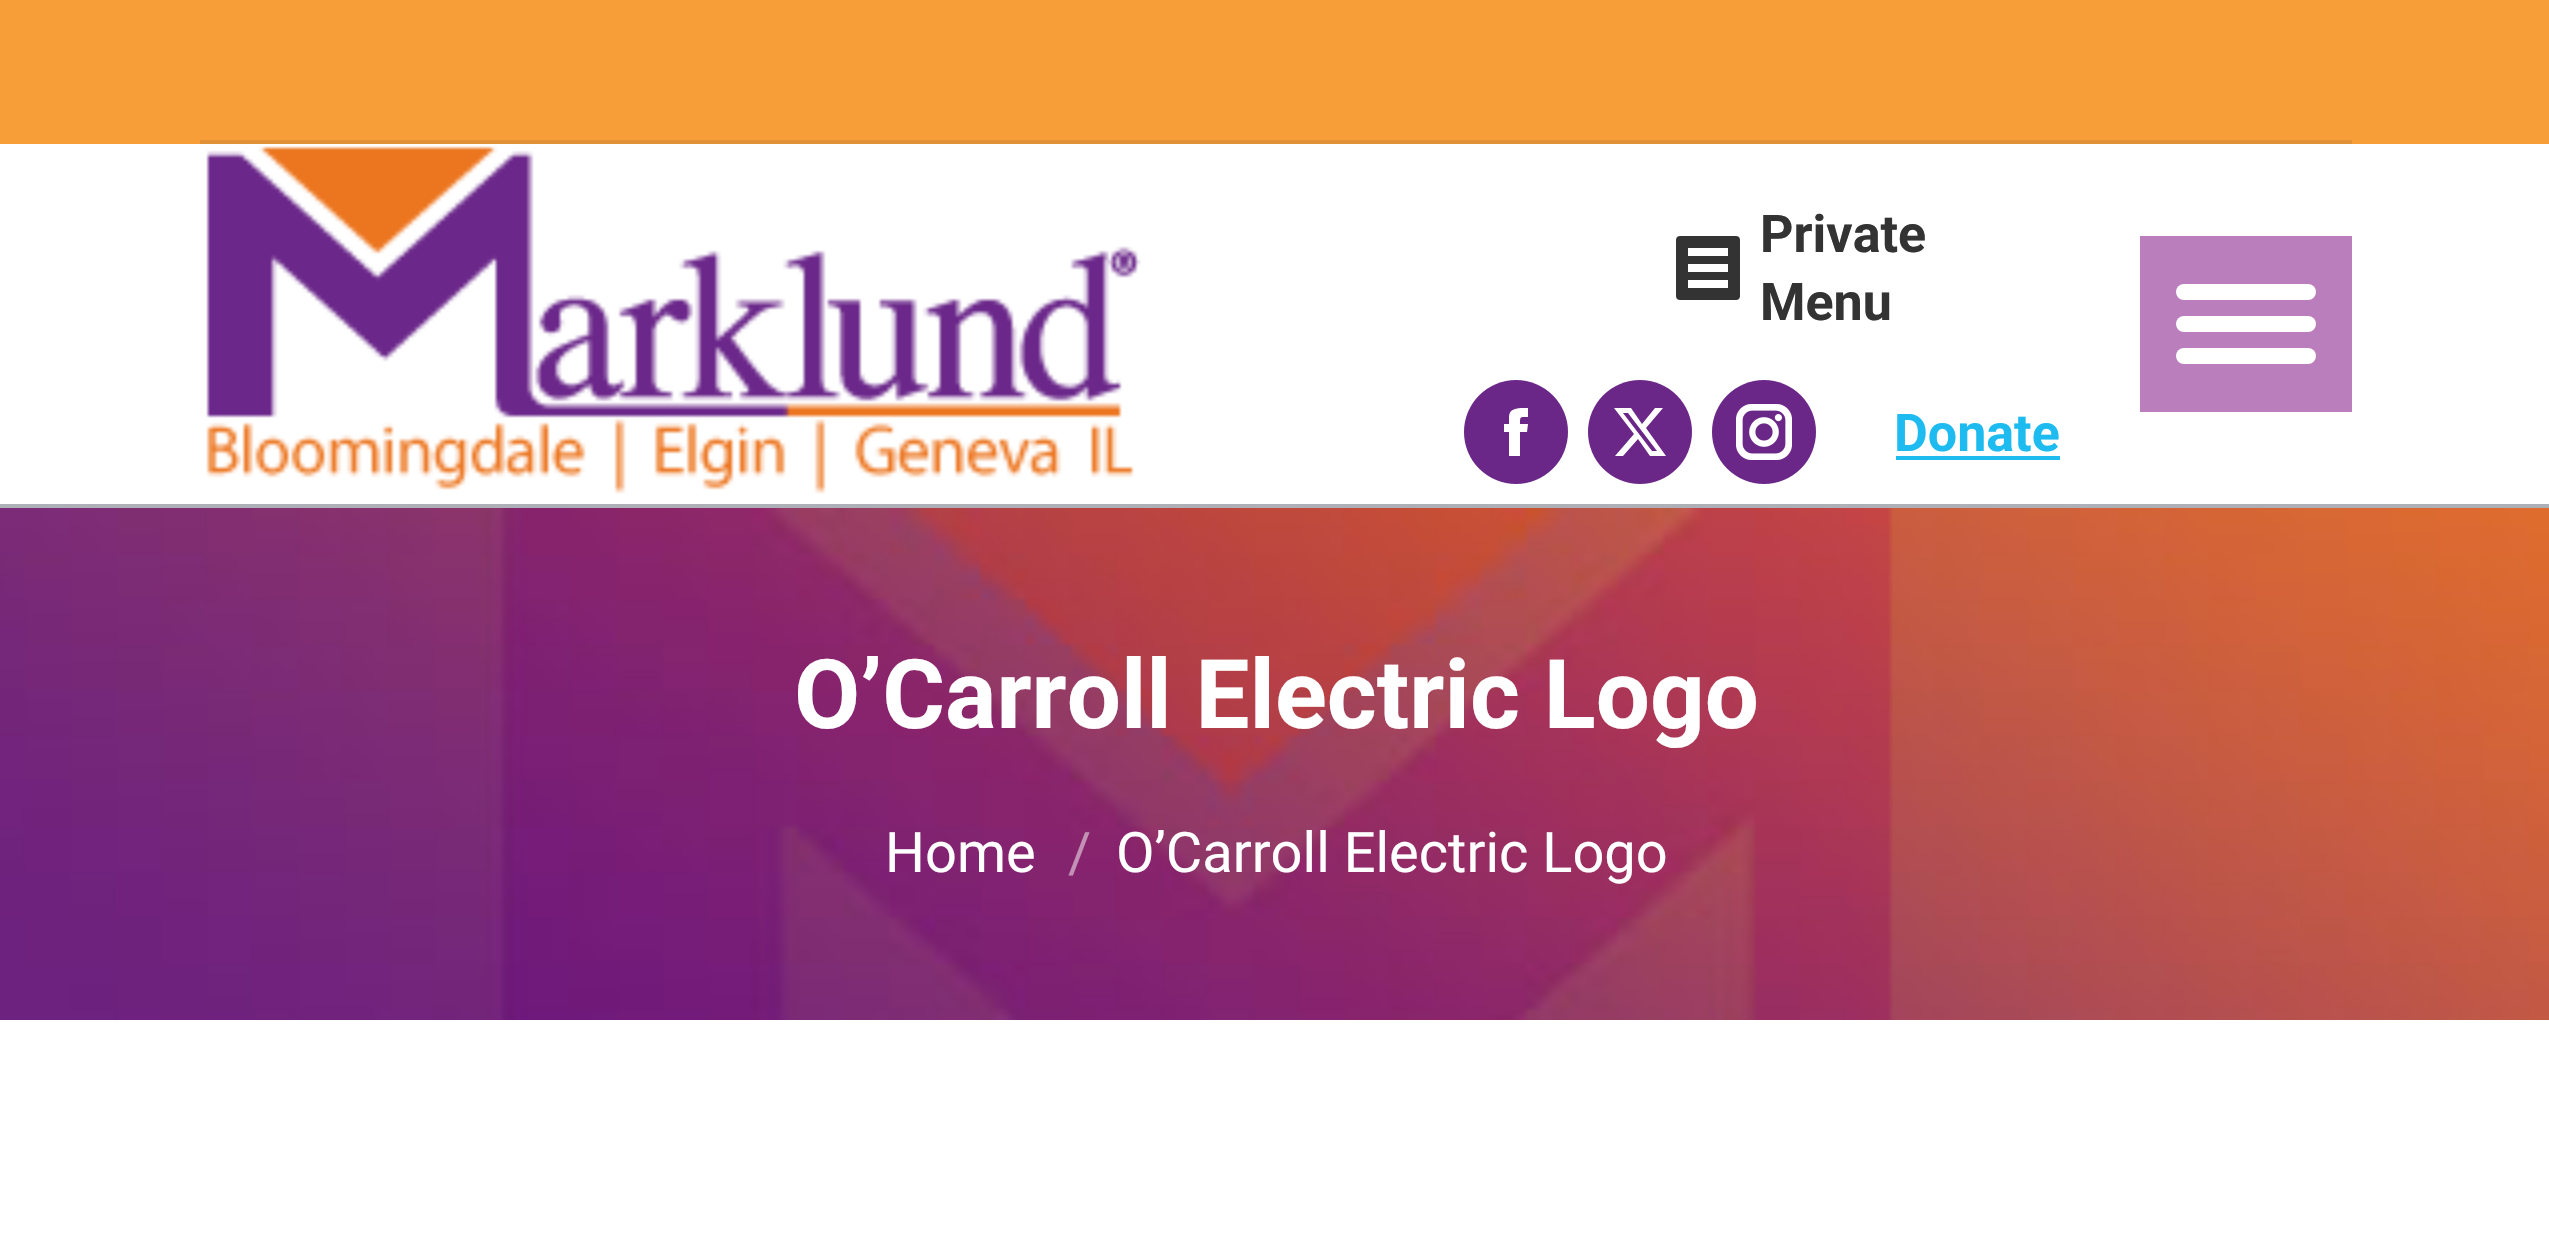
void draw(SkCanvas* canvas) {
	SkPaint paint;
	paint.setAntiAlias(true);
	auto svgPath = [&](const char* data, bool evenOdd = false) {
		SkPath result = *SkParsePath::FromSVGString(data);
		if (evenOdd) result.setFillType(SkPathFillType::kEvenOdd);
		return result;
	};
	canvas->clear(0xffffffff);
	paint.setColor(0xffadb0b6);
	canvas->drawRect(SkRect::MakeXYWH(0, 504, 2549, 4), paint);
	paint.setColor(0xfff79e38);
	canvas->drawRect(SkRect::MakeXYWH(0, 0, 2549, 144), paint);
	paint.setColor(0xffe19237);
	canvas->drawRect(SkRect::MakeXYWH(200, 140, 2152, 4), paint);
	canvas->drawImageRect(SkImages::DeferredFromEncodedData(SkData::MakeFromFileName("img1.png")), SkRect::MakeXYWH(206, 146, 935, 348), SkSamplingOptions());
	canvas->drawImageRect(SkImages::DeferredFromEncodedData(SkData::MakeFromFileName("img2.png")), SkRect::MakeXYWH(1676, 236, 64, 64), SkSamplingOptions());
	SkFont f1(fontMgr->matchFamilyStyle("Roboto", SkFontStyle::Bold()), 52);
	f1.setSubpixel(true);
	paint.setColor(0xff333333);
	canvas->drawString("Private", 1760, 252, f1, paint);
	canvas->drawString("Menu", 1760, 320, f1, paint);
	paint.setColor(0xff6a2787);
	canvas->drawCircle(1516, 432, 52, paint);
	paint.setColor(0xffffffff);
	canvas->drawPath(svgPath("M1509 417C1509 407 1520 408 1528 408V417C1520 417 1520 416 1520 424H1528L1527 432H1520V456H1509V432H1504V424H1509Z"), paint);
	paint.setColor(0xff6a2787);
	canvas->drawCircle(1640, 432, 52, paint);
	paint.setColor(0xffffffff);
	canvas->drawPath(svgPath("M1655 408H1663L1646 428L1666 456H1650L1638 439L1623 456H1615L1634 434L1614 408H1631L1642 424ZM1652 451H1657L1628 413H1623Z"), paint);
	paint.setColor(0xff6a2787);
	canvas->drawCircle(1764, 432, 52, paint);
	canvas->drawImageRect(SkImages::DeferredFromEncodedData(SkData::MakeFromFileName("img3.png")), SkRect::MakeXYWH(1736, 404, 56, 56), SkSamplingOptions());
	paint.setColor(0xff1ebbf0);
	canvas->drawString("Donate", 1894, 451, f1, paint);
	canvas->drawRect(SkRect::MakeXYWH(1896, 456, 164, 4), paint);
	paint.setColor(0xffb97ebb);
	canvas->drawRect(SkRect::MakeXYWH(2140, 236, 212, 176), paint);
	paint.setColor(0xffffffff);
	canvas->drawRoundRect(SkRect::MakeXYWH(2176, 284, 140, 16), 8, 8, paint);
	canvas->drawRoundRect(SkRect::MakeXYWH(2176, 316, 140, 16), 8, 8, paint);
	canvas->drawRoundRect(SkRect::MakeXYWH(2176, 348, 140, 16), 8, 8, paint);
	canvas->drawImageRect(SkImages::DeferredFromEncodedData(SkData::MakeFromFileName("img4.png")), SkRect::MakeXYWH(0, 508, 2549, 512), SkSamplingOptions());
	SkFont f2(fontMgr->matchFamilyStyle("Roboto", SkFontStyle::Bold()), 96);
	f2.setSubpixel(true);
	canvas->drawString("O’Carroll Electric Logo", 794, 728, f2, paint);
	SkFont f3(fontMgr->matchFamilyStyle("Roboto", SkFontStyle::Normal()), 56);
	f3.setSubpixel(true);
	canvas->drawString("Home", 885, 872, f3, paint);
	paint.setColor(0xffc391b6);
	canvas->drawString("/", 1068, 872, f3, paint);
	paint.setColor(0xffffffff);
	canvas->drawString("O’Carroll Electric Logo", 1116, 872, f3, paint);
}
